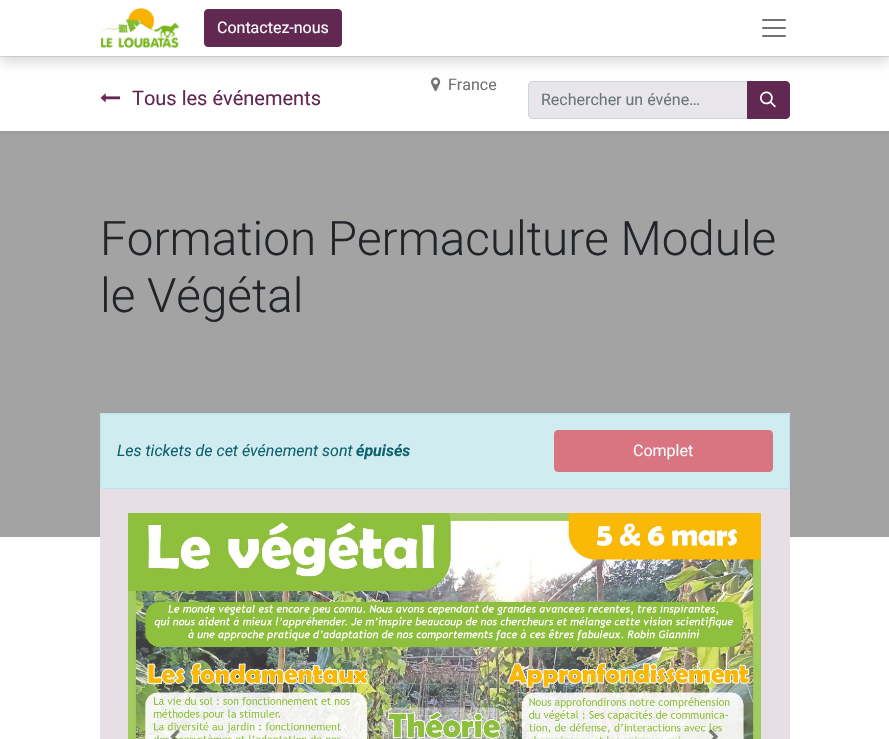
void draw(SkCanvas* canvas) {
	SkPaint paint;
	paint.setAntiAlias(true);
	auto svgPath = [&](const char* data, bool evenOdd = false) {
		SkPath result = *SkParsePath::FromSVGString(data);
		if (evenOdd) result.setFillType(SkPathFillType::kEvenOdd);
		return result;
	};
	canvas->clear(0xffffffff);
	canvas->save();
	canvas->clipRect(SkRect::MakeXYWH(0, 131, 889, 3));
	paint.setColor(0x12000000);
	paint.setMaskFilter(SkMaskFilter::MakeBlur(kNormal_SkBlurStyle, 2));
	canvas->drawRect(SkRect::MakeXYWH(0, 58, 889, 75), paint);
	paint.setMaskFilter(nullptr);
	canvas->restore();
	paint.setColor(0xffdee2e6);
	canvas->drawRect(SkRect::MakeXYWH(0, 56, 889, 1), paint);
	canvas->drawImageRect(SkImages::DeferredFromEncodedData(SkData::MakeFromFileName("img3.png")), SkRect::MakeXYWH(431, 77, 10, 15), SkSamplingOptions());
	paint.setColor(0x26000000);
	paint.setMaskFilter(SkMaskFilter::MakeBlur(kNormal_SkBlurStyle, 6));
	canvas->drawRect(SkRect::MakeXYWH(0, 6, 889, 56), paint);
	paint.setMaskFilter(nullptr);
	paint.setColor(0xffffffff);
	canvas->drawRect(SkRect::MakeXYWH(0, 0, 889, 56), paint);
	canvas->drawImageRect(SkImages::DeferredFromEncodedData(SkData::MakeFromFileName("img1.png")), SkRect::MakeXYWH(100, 8, 80, 40), SkSamplingOptions());
	paint.setColor(0xff612851);
	canvas->drawRoundRect(SkRect::MakeXYWH(204.5, 9.5, 137, 37), 3.5, 3.5, paint);
	paint.setStroke(true);
	paint.setStrokeWidth(1);
	canvas->drawRoundRect(SkRect::MakeXYWH(204.5, 9.5, 137, 37), 3.5, 3.5, paint);
	SkFont f1(fontMgr->matchFamilyStyle("Roboto", SkFontStyle::Normal()), 16);
	f1.setSubpixel(true);
	paint.setStroke(false);
	paint.setColor(0xffffffff);
	canvas->drawString("Contactez-nous", 217, 33, f1, paint);
	canvas->drawImageRect(SkImages::DeferredFromEncodedData(SkData::MakeFromFileName("img2.png")), SkRect::MakeXYWH(762, 19, 24, 18), SkSamplingOptions());
	paint.setColor(0xff737373);
	canvas->drawString("France", 448, 90, f1, paint);
	canvas->drawImageRect(SkImages::DeferredFromEncodedData(SkData::MakeFromFileName("img4.png")), SkRect::MakeXYWH(100, 93, 20, 10), SkSamplingOptions());
	SkFont f2(fontMgr->matchFamilyStyle("Roboto", SkFontStyle::Normal()), 20);
	f2.setSubpixel(true);
	paint.setColor(0xff612851);
	canvas->drawString("Tous les événements", 132, 105, f2, paint);
	paint.setColor(0xffe8e6ea);
	canvas->drawPath(svgPath("M532 81.5H747.5V118.5H532C530 118.5 528.5 117 528.5 115V85C528.5 83 530 81.5 532 81.5Z"), paint);
	paint.setStroke(true);
	paint.setColor(0xffced4da);
	canvas->drawPath(svgPath("M532 81.5H747.5V118.5H532C530 118.5 528.5 117 528.5 115V85C528.5 83 530 81.5 532 81.5Z"), paint);
	paint.setStroke(false);
	paint.setColor(0xff6c757d);
	canvas->drawString("Rechercher un événe…", 541, 105, f1, paint);
	paint.setColor(0xff612851);
	canvas->drawPath(svgPath("M747.5 81.5H786C788 81.5 789.5 83 789.5 85V115C789.5 117 788 118.5 786 118.5H747.5Z"), paint);
	paint.setStroke(true);
	canvas->drawPath(svgPath("M747.5 81.5H786C788 81.5 789.5 83 789.5 85V115C789.5 117 788 118.5 786 118.5H747.5Z"), paint);
	canvas->drawImageRect(SkImages::DeferredFromEncodedData(SkData::MakeFromFileName("img5.png")), SkRect::MakeXYWH(760, 91, 16, 17), SkSamplingOptions());
	paint.setStroke(false);
	paint.setColor(0x5c000000);
	canvas->drawRect(SkRect::MakeXYWH(0, 131, 889, 406), paint);
	SkFont f3(fontMgr->matchFamilyStyle("Roboto", SkFontStyle(300, SkFontStyle::kNormal_Width, SkFontStyle::kUpright_Slant)), 47.6);
	f3.setSubpixel(true);
	paint.setColor(0xff212529);
	canvas->drawString("Formation Permaculture Module", 100, 255, f3, paint);
	canvas->drawString("le Végétal", 100, 312, f3, paint);
	paint.setColor(0xffe7dfe5);
	canvas->drawRect(SkRect::MakeXYWH(100, 413, 690, 326), paint);
	paint.setColor(0xffd1ecf1);
	canvas->drawRoundRect(SkRect::MakeXYWH(100.5, 413.5, 689, 75), 3.5, 3.5, paint);
	paint.setStroke(true);
	paint.setColor(0xffb9e3ea);
	canvas->drawRoundRect(SkRect::MakeXYWH(100.5, 413.5, 689, 75), 3.5, 3.5, paint);
	SkFont f4(fontMgr->matchFamilyStyle("Roboto", SkFontStyle::Italic()), 16);
	f4.setSubpixel(true);
	paint.setStroke(false);
	paint.setColor(0xff0e616e);
	canvas->drawString("Les tickets de cet événement sont", 117, 456, f4, paint);
	SkFont f5(fontMgr->matchFamilyStyle("Roboto", SkFontStyle::BoldItalic()), 16);
	f5.setSubpixel(true);
	canvas->drawString("épuisés", 356, 456, f5, paint);
	paint.setColor(0xffd87581);
	canvas->drawRoundRect(SkRect::MakeXYWH(554.5, 430.5, 218, 41), 3.5, 3.5, paint);
	paint.setStroke(true);
	canvas->drawRoundRect(SkRect::MakeXYWH(554.5, 430.5, 218, 41), 3.5, 3.5, paint);
	paint.setStroke(false);
	paint.setColor(0xffeff8fa);
	canvas->drawString("Complet", 633, 456, f1, paint);
	canvas->drawImageRect(SkImages::DeferredFromEncodedData(SkData::MakeFromFileName("img6.png")), SkRect::MakeXYWH(128, 513, 633, 226), SkSamplingOptions());
	canvas->drawImageRect(SkImages::DeferredFromEncodedData(SkData::MakeFromFileName("img7.png")), SkRect::MakeXYWH(170, 729, 10, 10), SkSamplingOptions());
	canvas->drawImageRect(SkImages::DeferredFromEncodedData(SkData::MakeFromFileName("img8.png")), SkRect::MakeXYWH(708, 729, 10, 10), SkSamplingOptions());
}
